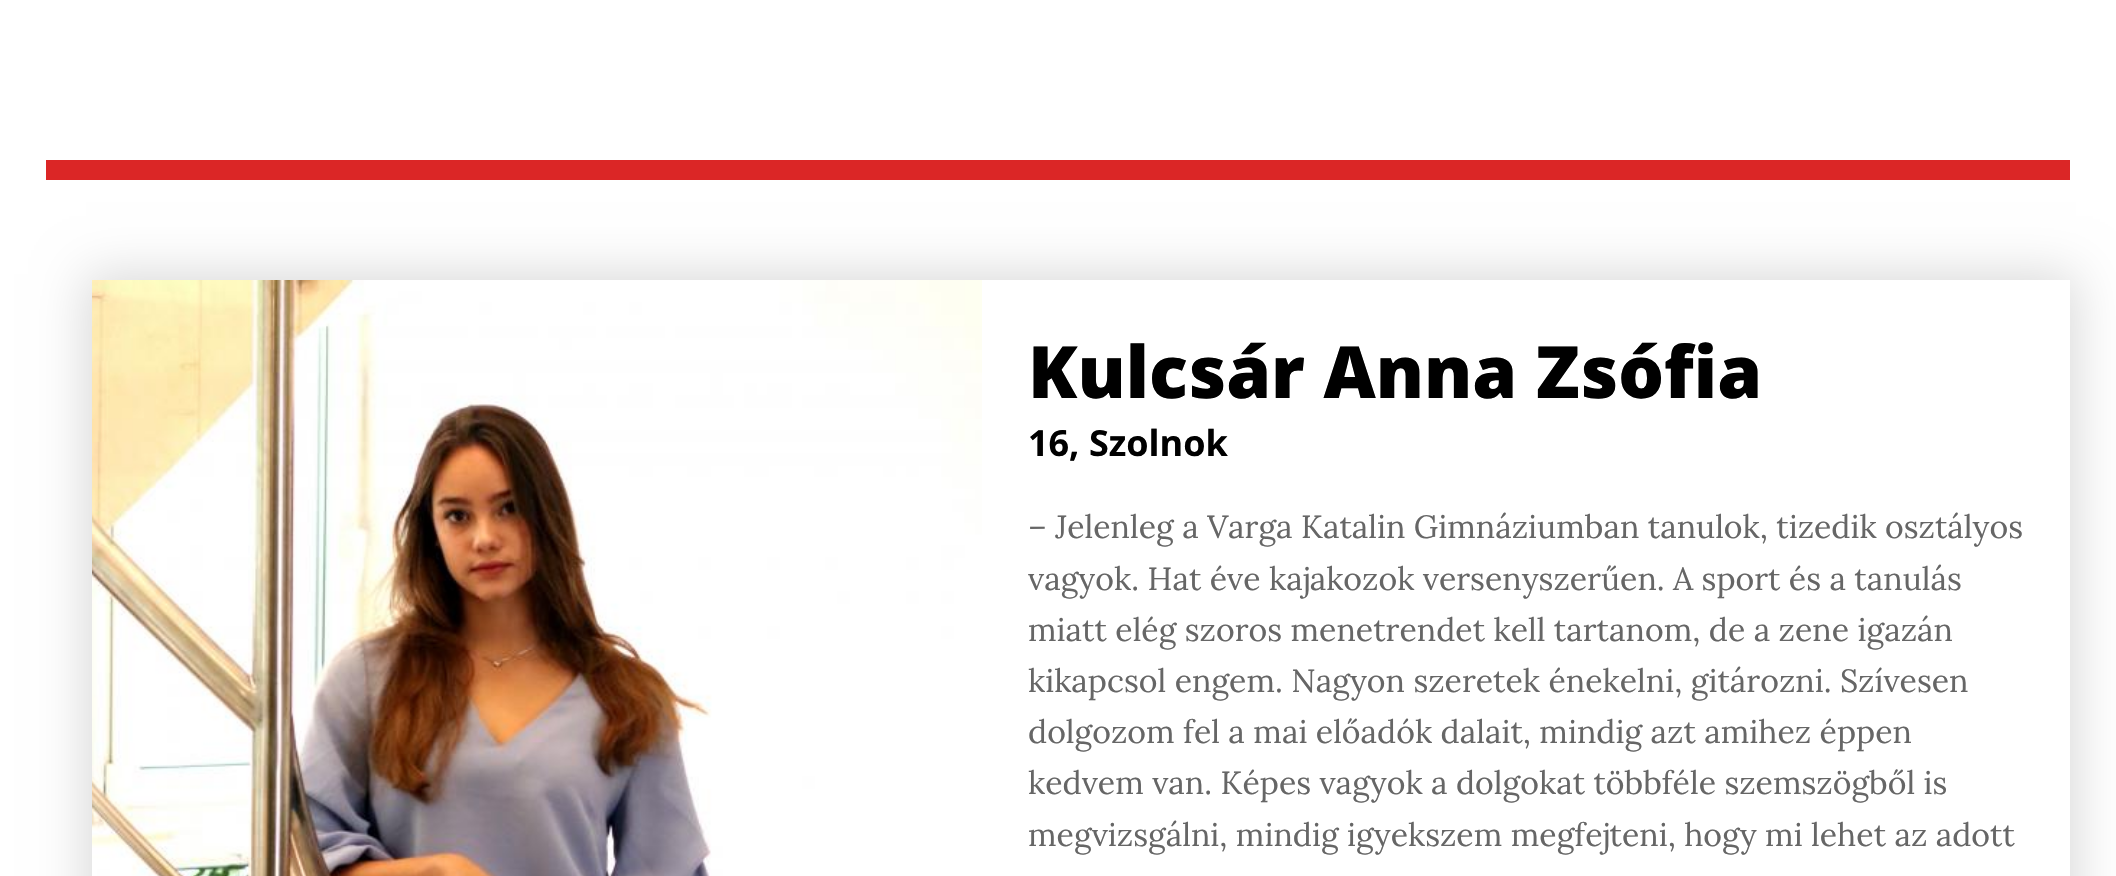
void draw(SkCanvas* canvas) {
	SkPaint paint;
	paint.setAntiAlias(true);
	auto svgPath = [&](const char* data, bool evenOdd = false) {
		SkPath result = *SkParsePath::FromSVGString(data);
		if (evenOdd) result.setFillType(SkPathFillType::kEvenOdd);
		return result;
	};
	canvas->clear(0xffffffff);
	paint.setColor(0xffdb2626);
	canvas->drawRect(SkRect::MakeXYWH(46, 160, 2024, 20), paint);
	canvas->save();
	canvas->clipPath(svgPath("M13 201H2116V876H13ZM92 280H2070V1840H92Z", true), true);
	paint.setColor(0x26000000);
	paint.setMaskFilter(SkMaskFilter::MakeBlur(kNormal_SkBlurStyle, 24));
	canvas->drawRect(SkRect::MakeXYWH(86, 274, 1990, 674), paint);
	paint.setMaskFilter(nullptr);
	canvas->restore();
	canvas->drawImageRect(SkImages::DeferredFromEncodedData(SkData::MakeFromFileName("img1.png")), SkRect::MakeXYWH(92, 280, 890, 596), SkSamplingOptions());
	SkFont f1(fontMgr->matchFamilyStyle("Open Sans", SkFontStyle(800, SkFontStyle::kNormal_Width, SkFontStyle::kUpright_Slant)), 72);
	f1.setSubpixel(true);
	paint.setColor(0xff000000);
	canvas->drawString("Kulcsár Anna Zsófia", 1028, 398, f1, paint);
	SkFont f2(fontMgr->matchFamilyStyle("Open Sans", SkFontStyle::Bold()), 36);
	f2.setSubpixel(true);
	canvas->drawString("16, Szolnok", 1028, 456, f2, paint);
	SkFont f3(fontMgr->matchFamilyStyle("Lora", SkFontStyle::Normal()), 32);
	f3.setSubpixel(true);
	paint.setColor(0xff666666);
	canvas->drawString("– Jelenleg a Varga Katalin Gimnáziumban tanulok, tizedik osztályos", 1028, 538, f3, paint);
	canvas->drawString("vagyok. Hat éve kajakozok versenyszerűen. A sport és a tanulás", 1028, 590, f3, paint);
	canvas->drawString("miatt elég szoros menetrendet kell tartanom, de a zene igazán", 1028, 641, f3, paint);
	canvas->drawString("kikapcsol engem. Nagyon szeretek énekelni, gitározni. Szívesen", 1028, 692, f3, paint);
	canvas->drawString("dolgozom fel a mai előadók dalait, mindig azt amihez éppen", 1028, 743, f3, paint);
	canvas->drawString("kedvem van. Képes vagyok a dolgokat többféle szemszögből is", 1028, 794, f3, paint);
	canvas->drawString("megvizsgálni, mindig igyekszem megfejteni, hogy mi lehet az adott", 1028, 846, f3, paint);
}
